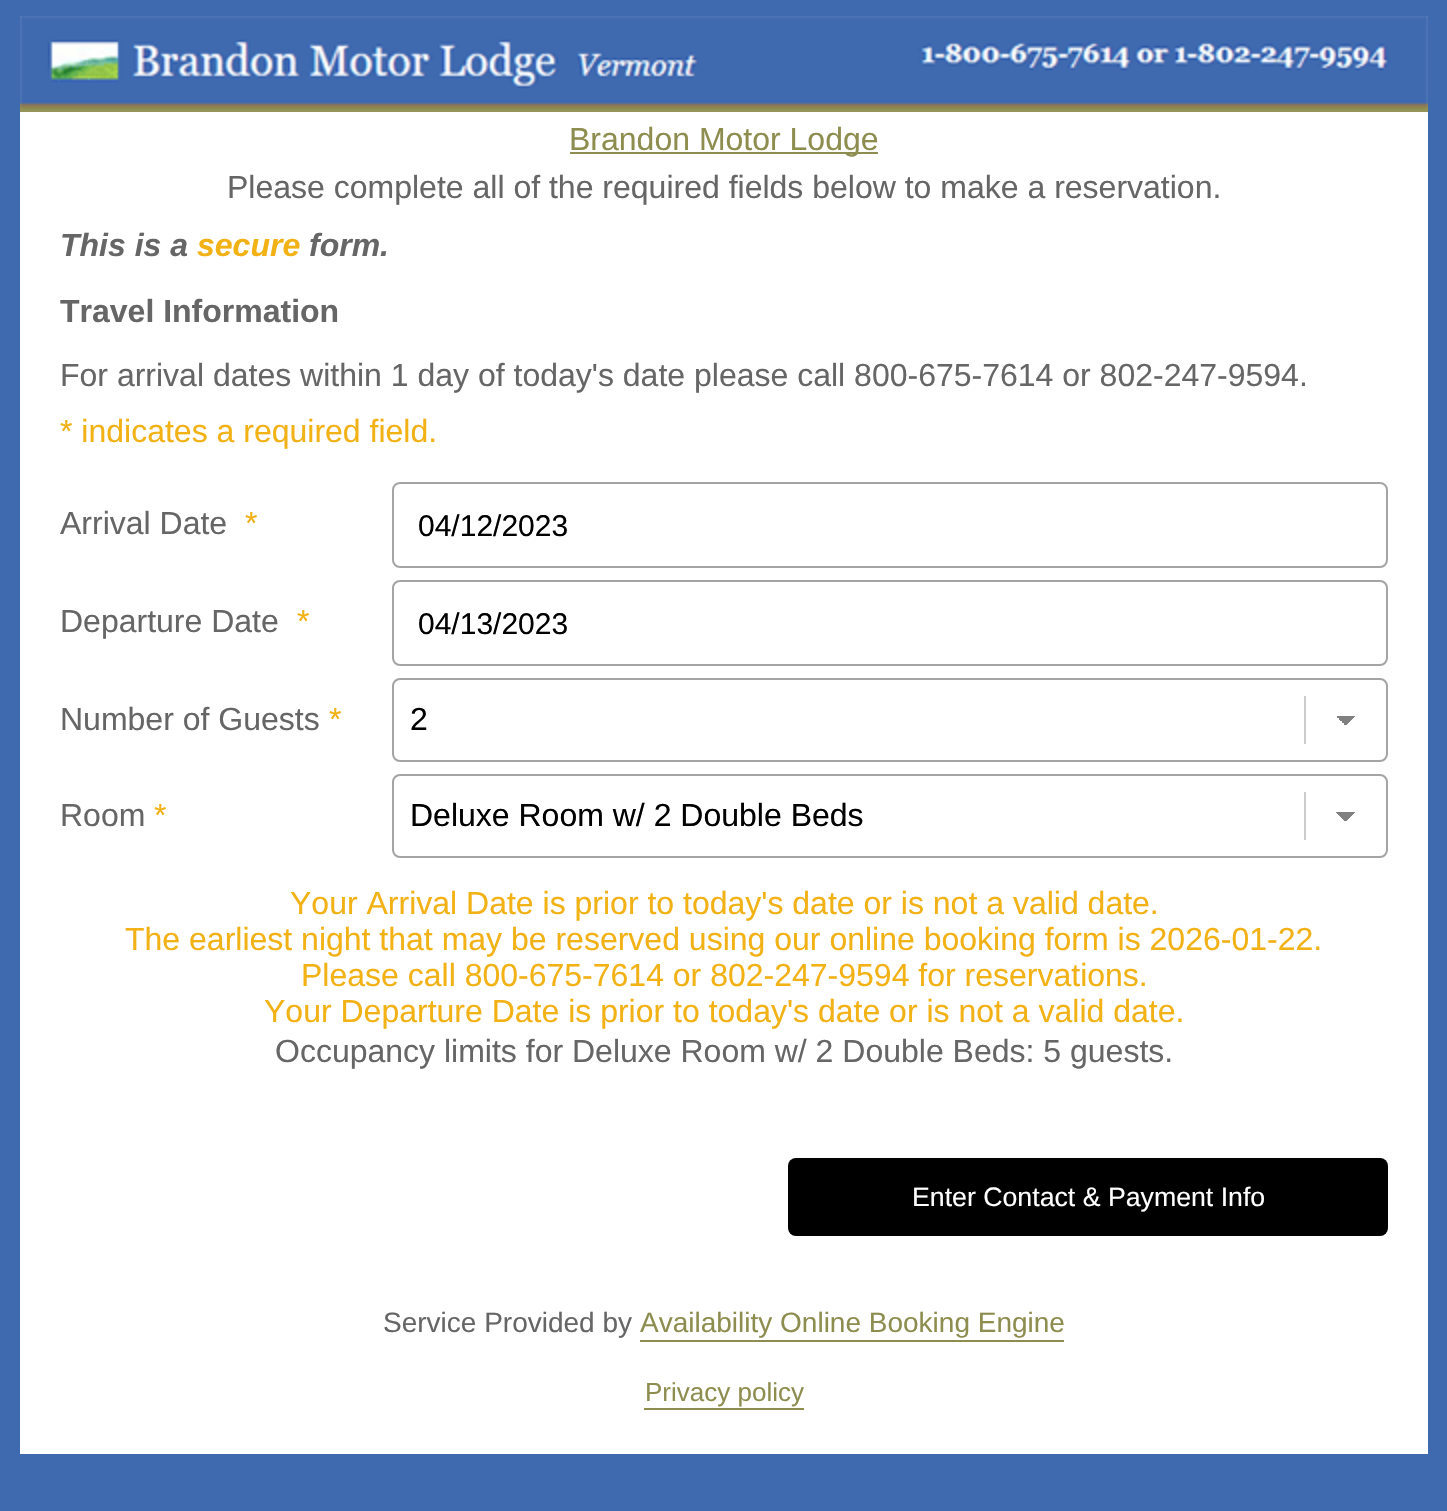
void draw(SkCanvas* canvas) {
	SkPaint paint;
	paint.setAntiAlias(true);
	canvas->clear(0xff406ab0);
	canvas->drawImageRect(SkImages::DeferredFromEncodedData(SkData::MakeFromFileName("img1.png")), SkRect::MakeXYWH(20, 16, 1408, 96), SkSamplingOptions());
	paint.setColor(0xffffffff);
	canvas->drawRect(SkRect::MakeXYWH(20, 112, 1408, 1342), paint);
	paint.setColor(0xff8e8d50);
	canvas->drawRect(SkRect::MakeXYWH(570, 152, 308, 2), paint);
	SkFont f1(fontMgr->matchFamilyStyle("Liberation Sans", SkFontStyle::Normal()), 32);
	f1.setSubpixel(true);
	canvas->drawString("Brandon Motor Lodge", 569, 150, f1, paint);
	paint.setColor(0xff666666);
	canvas->drawString("Please complete all of the required fields below to make a reservation.", 227, 198, f1, paint);
	SkFont f2(fontMgr->matchFamilyStyle("Liberation Sans", SkFontStyle::BoldItalic()), 32);
	f2.setSubpixel(true);
	canvas->drawString("This is a", 60, 256, f2, paint);
	paint.setColor(0xfff2b115);
	canvas->drawString("secure", 197, 256, f2, paint);
	paint.setColor(0xff666666);
	canvas->drawString("form.", 309, 256, f2, paint);
	SkFont f3(fontMgr->matchFamilyStyle("Liberation Sans", SkFontStyle::Bold()), 32);
	f3.setSubpixel(true);
	canvas->drawString("Travel Information", 60, 322, f3, paint);
	canvas->drawString("For arrival dates within 1 day of today's date please call 800-675-7614 or 802-247-9594.", 60, 386, f1, paint);
	paint.setColor(0xfff2b115);
	canvas->drawString("* indicates a required field.", 60, 442, f1, paint);
	paint.setColor(0xff666666);
	canvas->drawString("Arrival Date", 60, 534, f1, paint);
	paint.setColor(0xfff2b115);
	canvas->drawString("*", 245, 534, f1, paint);
	paint.setStroke(true);
	paint.setStrokeWidth(2);
	paint.setColor(0xffa4a4a4);
	canvas->drawRoundRect(SkRect::MakeXYWH(393, 483, 994, 84), 7, 7, paint);
	SkFont f4(fontMgr->matchFamilyStyle("Liberation Sans", SkFontStyle::Normal()), 30);
	f4.setSubpixel(true);
	paint.setStroke(false);
	paint.setColor(0xff000000);
	canvas->drawString("04/12/2023", 418, 536, f4, paint);
	paint.setColor(0xff666666);
	canvas->drawString("Departure Date", 60, 632, f1, paint);
	paint.setColor(0xfff2b115);
	canvas->drawString("*", 297, 632, f1, paint);
	paint.setStroke(true);
	paint.setColor(0xffa4a4a4);
	canvas->drawRoundRect(SkRect::MakeXYWH(393, 581, 994, 84), 7, 7, paint);
	paint.setStroke(false);
	paint.setColor(0xff000000);
	canvas->drawString("04/13/2023", 418, 634, f4, paint);
	paint.setColor(0xff666666);
	canvas->drawString("Number of Guests", 60, 730, f1, paint);
	paint.setColor(0xfff2b115);
	canvas->drawString("*", 329, 730, f1, paint);
	paint.setColor(0xffcccccc);
	canvas->drawRect(SkRect::MakeXYWH(1304, 696, 2, 48), paint);
	{
		const SkColor colors[] = {0xff808080, 0xffffffff};
		const float stops[] = {0.5, 0.5};
		const SkPoint ends[] = {{1346, 716}, {1356, 726}};
		paint.setShader(SkGradientShader::MakeLinear(ends, colors, stops, 2, SkTileMode::kClamp));
		paint.setAlpha(255);
	}
	canvas->drawRect(SkRect::MakeXYWH(1346, 716, 10, 9), paint);
	{
		const SkColor colors[] = {0xffffffff, 0xff808080};
		const float stops[] = {0.5, 0.5};
		const SkPoint ends[] = {{1336, 726}, {1346, 716}};
		paint.setShader(SkGradientShader::MakeLinear(ends, colors, stops, 2, SkTileMode::kClamp));
		paint.setAlpha(255);
	}
	canvas->drawRect(SkRect::MakeXYWH(1336, 716, 10, 9), paint);
	paint.setStroke(true);
	paint.setShader(nullptr);
	paint.setColor(0xffa4a4a4);
	canvas->drawRoundRect(SkRect::MakeXYWH(393, 679, 994, 82), 7, 7, paint);
	paint.setStroke(false);
	paint.setColor(0xff000000);
	canvas->drawString("2", 410, 730, f1, paint);
	paint.setColor(0xff666666);
	canvas->drawString("Room", 60, 826, f1, paint);
	paint.setColor(0xfff2b115);
	canvas->drawString("*", 154, 826, f1, paint);
	paint.setColor(0xffcccccc);
	canvas->drawRect(SkRect::MakeXYWH(1304, 792, 2, 48), paint);
	{
		const SkColor colors[] = {0xff808080, 0xffffffff};
		const float stops[] = {0.5, 0.5};
		const SkPoint ends[] = {{1346, 812}, {1356, 822}};
		paint.setShader(SkGradientShader::MakeLinear(ends, colors, stops, 2, SkTileMode::kClamp));
		paint.setAlpha(255);
	}
	canvas->drawRect(SkRect::MakeXYWH(1346, 812, 10, 9), paint);
	{
		const SkColor colors[] = {0xffffffff, 0xff808080};
		const float stops[] = {0.5, 0.5};
		const SkPoint ends[] = {{1336, 822}, {1346, 812}};
		paint.setShader(SkGradientShader::MakeLinear(ends, colors, stops, 2, SkTileMode::kClamp));
		paint.setAlpha(255);
	}
	canvas->drawRect(SkRect::MakeXYWH(1336, 812, 10, 9), paint);
	paint.setStroke(true);
	paint.setShader(nullptr);
	paint.setColor(0xffa4a4a4);
	canvas->drawRoundRect(SkRect::MakeXYWH(393, 775, 994, 82), 7, 7, paint);
	paint.setStroke(false);
	paint.setColor(0xff000000);
	canvas->drawString("Deluxe Room w/ 2 Double Beds", 410, 826, f1, paint);
	paint.setColor(0xfff2b115);
	canvas->drawString("Your Arrival Date is prior to today's date or is not a valid date.", 290, 914, f1, paint);
	canvas->drawString("The earliest night that may be reserved using our online booking form is 2026-01-22.", 125, 950, f1, paint);
	canvas->drawString("Please call 800-675-7614 or 802-247-9594 for reservations.", 301, 986, f1, paint);
	canvas->drawString("Your Departure Date is prior to today's date or is not a valid date.", 264, 1022, f1, paint);
	paint.setColor(0xff666666);
	canvas->drawString("Occupancy limits for Deluxe Room w/ 2 Double Beds: 5 guests.", 275, 1062, f1, paint);
	paint.setColor(0xff000000);
	canvas->drawRoundRect(SkRect::MakeXYWH(788, 1158, 600, 78), 8, 8, paint);
	SkFont f5(fontMgr->matchFamilyStyle("Liberation Sans", SkFontStyle::Normal()), 26.7);
	f5.setSubpixel(true);
	paint.setColor(0xffffffff);
	canvas->drawString("Enter Contact & Payment Info", 912, 1206, f5, paint);
	SkFont f6(fontMgr->matchFamilyStyle("Liberation Sans", SkFontStyle::Normal()), 28);
	f6.setSubpixel(true);
	paint.setColor(0xff666666);
	canvas->drawString("Service Provided by", 383, 1332, f6, paint);
	paint.setColor(0xff8e8d50);
	canvas->drawString("Availability Online Booking Engine", 640, 1332, f6, paint);
	canvas->drawRect(SkRect::MakeXYWH(640, 1340, 424, 2), paint);
	SkFont f7(fontMgr->matchFamilyStyle("Liberation Sans", SkFontStyle::Normal()), 26);
	f7.setSubpixel(true);
	canvas->drawString("Privacy policy", 645, 1401, f7, paint);
	canvas->drawRect(SkRect::MakeXYWH(644, 1408, 160, 2), paint);
}
